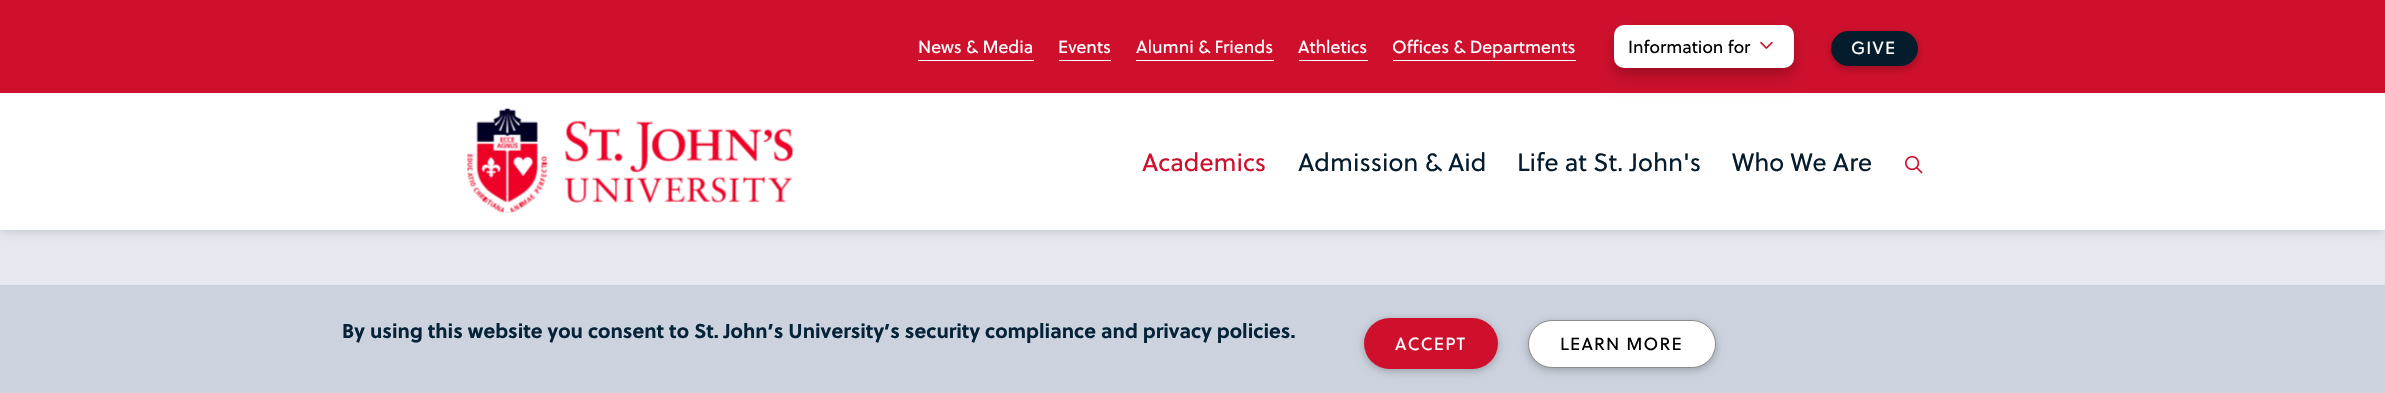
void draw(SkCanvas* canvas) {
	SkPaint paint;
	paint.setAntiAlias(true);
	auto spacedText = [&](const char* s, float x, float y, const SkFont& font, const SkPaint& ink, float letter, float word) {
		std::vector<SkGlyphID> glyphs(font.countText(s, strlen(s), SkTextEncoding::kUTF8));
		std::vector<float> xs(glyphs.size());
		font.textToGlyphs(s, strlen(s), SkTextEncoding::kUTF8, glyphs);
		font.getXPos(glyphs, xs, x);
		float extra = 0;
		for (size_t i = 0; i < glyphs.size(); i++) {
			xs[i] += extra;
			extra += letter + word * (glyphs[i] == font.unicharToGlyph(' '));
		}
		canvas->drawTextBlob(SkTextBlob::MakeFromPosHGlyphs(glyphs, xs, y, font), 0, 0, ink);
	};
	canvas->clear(0xffe6eaf0);
	paint.setColor(0x33000000);
	paint.setMaskFilter(SkMaskFilter::MakeBlur(kNormal_SkBlurStyle, 6));
	canvas->drawRect(SkRect::MakeXYWH(0, 0, 2385, 230), paint);
	paint.setMaskFilter(nullptr);
	paint.setColor(0xffffffff);
	canvas->drawRect(SkRect::MakeXYWH(0, 93, 2385, 137), paint);
	paint.setColor(0xffcf102d);
	canvas->drawRect(SkRect::MakeXYWH(0, 0, 2385, 93), paint);
	canvas->drawImageRect(SkImages::DeferredFromEncodedData(SkData::MakeFromFileName("img1.png")), SkRect::MakeXYWH(467, 108, 326, 105), SkSamplingOptions());
	SkFont f1(fontMgr->matchFamilyStyle("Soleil", SkFontStyle::Normal()), 17.5);
	f1.setSubpixel(true);
	paint.setColor(0xffffffff);
	canvas->drawString("News & Media", 918, 53, f1, paint);
	canvas->drawRect(SkRect::MakeXYWH(918, 60, 116, 1), paint);
	canvas->drawString("Events", 1058, 53, f1, paint);
	canvas->drawRect(SkRect::MakeXYWH(1059, 60, 52, 1), paint);
	canvas->drawString("Alumni & Friends", 1136, 53, f1, paint);
	canvas->drawRect(SkRect::MakeXYWH(1136, 60, 138, 1), paint);
	canvas->drawString("Athletics", 1298, 53, f1, paint);
	canvas->drawRect(SkRect::MakeXYWH(1299, 60, 69, 1), paint);
	canvas->drawString("Offices & Departments", 1392, 53, f1, paint);
	canvas->drawRect(SkRect::MakeXYWH(1393, 60, 183, 1), paint);
	paint.setColor(0x1a000000);
	paint.setMaskFilter(SkMaskFilter::MakeBlur(kNormal_SkBlurStyle, 10));
	canvas->drawRoundRect(SkRect::MakeXYWH(1614, 38, 180, 42), 10, 10, paint);
	paint.setMaskFilter(nullptr);
	paint.setColor(0x26000000);
	paint.setMaskFilter(SkMaskFilter::MakeBlur(kNormal_SkBlurStyle, 5));
	canvas->drawRoundRect(SkRect::MakeXYWH(1614, 30, 180, 43), 10, 10, paint);
	paint.setMaskFilter(nullptr);
	paint.setColor(0xffffffff);
	canvas->drawRoundRect(SkRect::MakeXYWH(1614, 25, 180, 43), 10, 10, paint);
	paint.setColor(0xff000000);
	canvas->drawString("Information for", 1628, 53, f1, paint);
	canvas->drawImageRect(SkImages::DeferredFromEncodedData(SkData::MakeFromFileName("img2.png")), SkRect::MakeXYWH(1760, 41, 13, 8), SkSamplingOptions());
	paint.setColor(0x40000000);
	paint.setMaskFilter(SkMaskFilter::MakeBlur(kNormal_SkBlurStyle, 4));
	canvas->drawRoundRect(SkRect::MakeXYWH(1831, 34, 87, 35), 17.5, 17.5, paint);
	paint.setMaskFilter(nullptr);
	paint.setColor(0xff051c2c);
	canvas->drawRoundRect(SkRect::MakeXYWH(1831.5, 31.5, 86, 34), 17, 17, paint);
	paint.setStroke(true);
	paint.setStrokeWidth(1);
	canvas->drawRoundRect(SkRect::MakeXYWH(1831.5, 31.5, 86, 34), 17, 17, paint);
	paint.setStroke(false);
	paint.setColor(0xffffffff);
	spacedText("GIVE", 1851, 54, f1, paint, 1.25, 0);
	SkFont f2(fontMgr->matchFamilyStyle("Soleil", SkFontStyle::Normal()), 25);
	f2.setSubpixel(true);
	paint.setColor(0xffcf102d);
	canvas->drawString("Academics", 1142, 171, f2, paint);
	paint.setColor(0xff051c2c);
	canvas->drawString("Admission & Aid", 1298, 171, f2, paint);
	canvas->drawString("Life at St. John's", 1517, 171, f2, paint);
	canvas->drawString("Who We Are", 1732, 171, f2, paint);
	canvas->drawImageRect(SkImages::DeferredFromEncodedData(SkData::MakeFromFileName("img3.png")), SkRect::MakeXYWH(1905, 155, 18, 19), SkSamplingOptions());
	paint.setColor(0xffccd3de);
	canvas->drawRect(SkRect::MakeXYWH(0, 285, 2385, 108), paint);
	SkFont f3(fontMgr->matchFamilyStyle("Soleil", SkFontStyle::Bold()), 20);
	f3.setSubpixel(true);
	paint.setColor(0xff052338);
	canvas->drawString("By using this website you consent to St. John’s University’s security compliance and privacy policies.", 342, 338, f3, paint);
	paint.setColor(0x40000000);
	paint.setMaskFilter(SkMaskFilter::MakeBlur(kNormal_SkBlurStyle, 4));
	canvas->drawRoundRect(SkRect::MakeXYWH(1364, 320, 134, 51), 25.5, 25.5, paint);
	paint.setMaskFilter(nullptr);
	paint.setColor(0xffcf102d);
	canvas->drawRoundRect(SkRect::MakeXYWH(1364, 318, 134, 51), 25.5, 25.5, paint);
	paint.setColor(0xffffffff);
	spacedText("ACCEPT", 1395, 350, f1, paint, 1.25, 0);
	paint.setColor(0x40000000);
	paint.setMaskFilter(SkMaskFilter::MakeBlur(kNormal_SkBlurStyle, 4));
	canvas->drawRoundRect(SkRect::MakeXYWH(1528, 323, 188, 47), 23.5, 23.5, paint);
	paint.setMaskFilter(nullptr);
	paint.setColor(0xffffffff);
	canvas->drawRoundRect(SkRect::MakeXYWH(1528.5, 320.5, 187, 47), 23.5, 23.5, paint);
	paint.setStroke(true);
	paint.setColor(0xff898b8e);
	canvas->drawRoundRect(SkRect::MakeXYWH(1528.5, 320.5, 187, 47), 23.5, 23.5, paint);
	paint.setStroke(false);
	paint.setColor(0xff000000);
	spacedText("LEARN MORE", 1560, 350, f1, paint, 1.25, 0);
}
